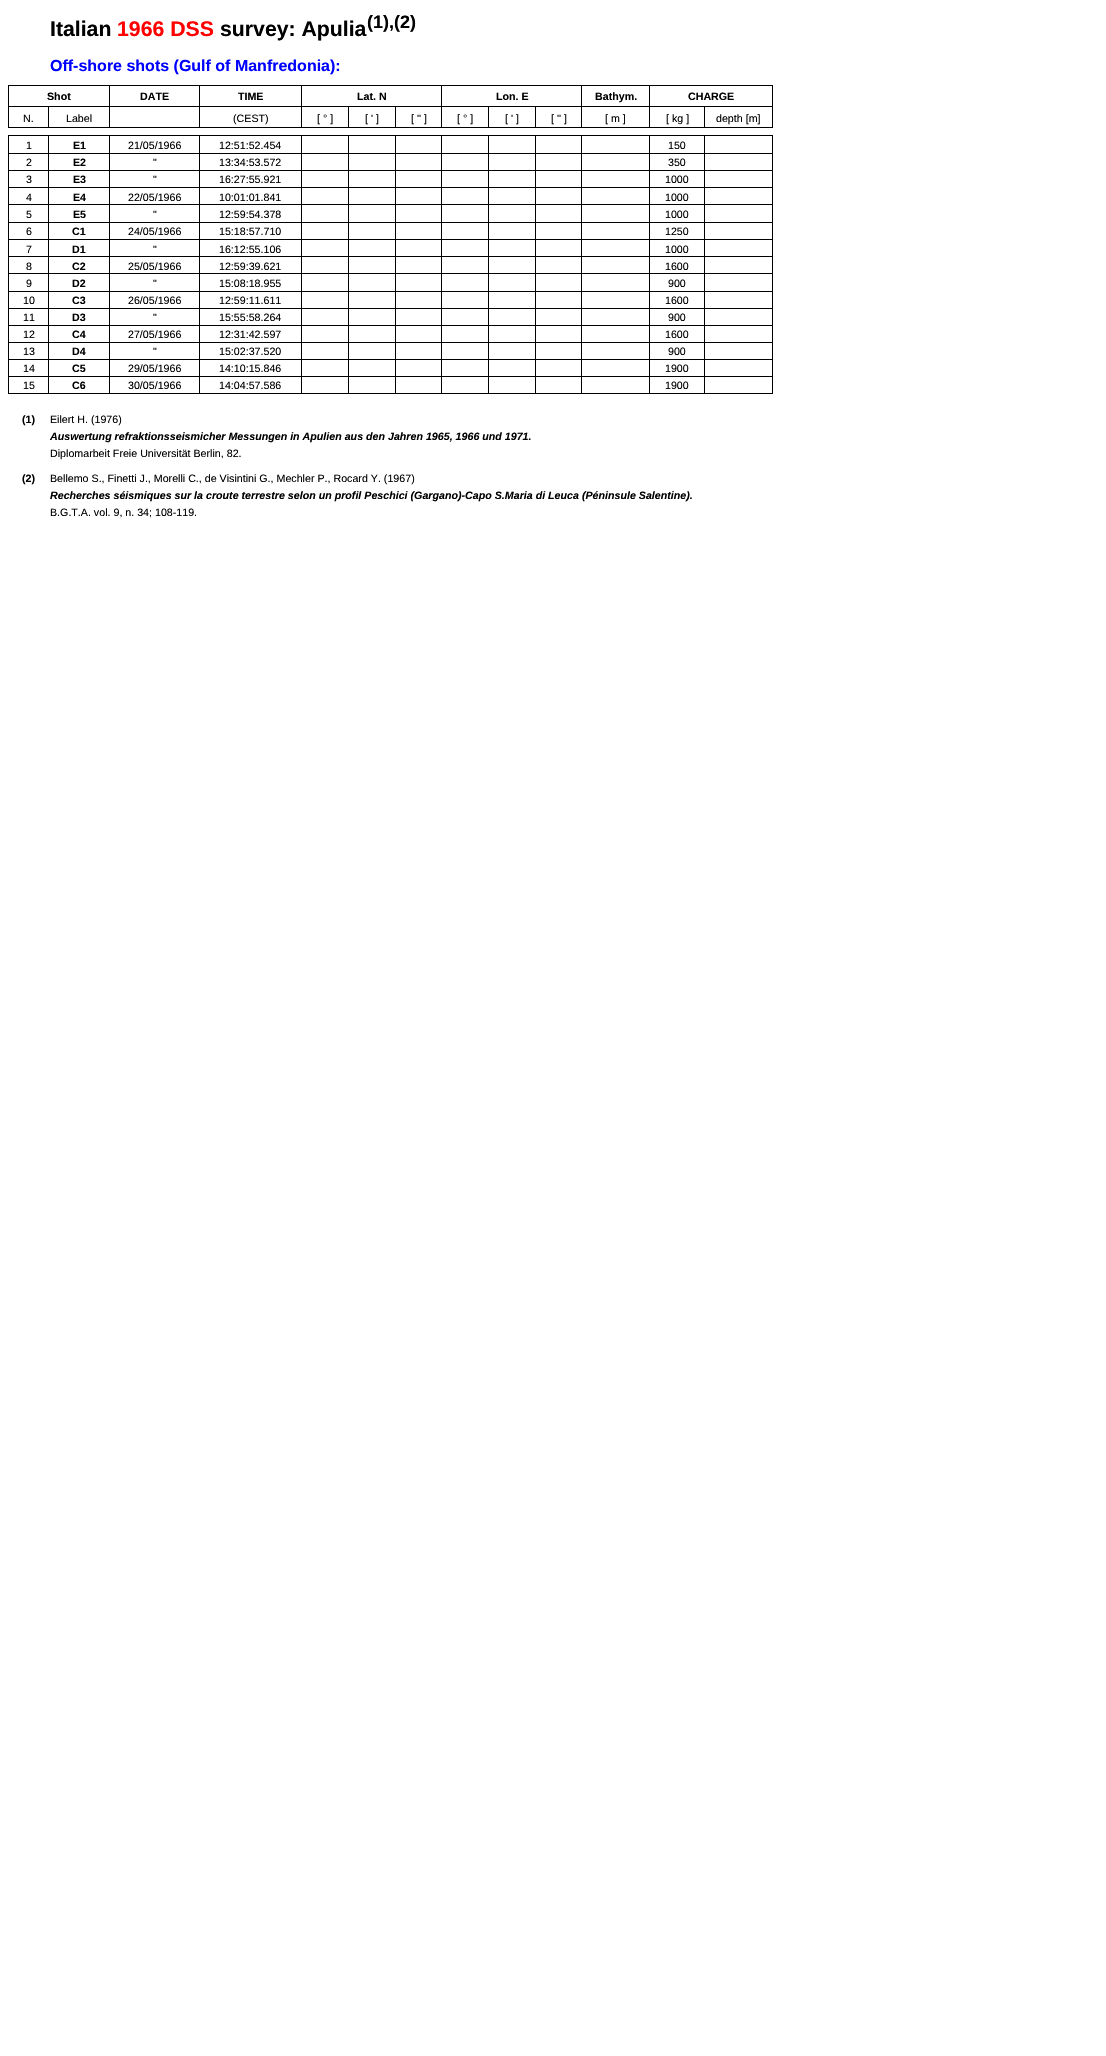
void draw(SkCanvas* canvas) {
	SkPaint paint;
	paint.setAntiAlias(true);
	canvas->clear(0xffffffff);
	SkFont f1(fontMgr->matchFamilyStyle("Liberation Sans", SkFontStyle::Bold()), 21.25);
	f1.setSubpixel(true);
	paint.setColor(0xff000000);
	canvas->drawString("Italian", 50, 36, f1, paint);
	paint.setColor(0xffff0000);
	canvas->drawString("1966 DSS", 117, 36, f1, paint);
	paint.setColor(0xff000000);
	canvas->drawString("survey: Apulia", 220, 36, f1, paint);
	SkFont f2(fontMgr->matchFamilyStyle("Liberation Sans", SkFontStyle::Bold()), 18);
	f2.setSubpixel(true);
	canvas->drawString("(1),(2)", 367, 28, f2, paint);
	SkFont f3(fontMgr->matchFamilyStyle("Liberation Sans", SkFontStyle::Bold()), 16);
	f3.setSubpixel(true);
	paint.setColor(0xff0000ff);
	canvas->drawString("Off-shore shots (Gulf of Manfredonia):", 50, 71, f3, paint);
	paint.setColor(0xff000000);
	canvas->drawRect(SkRect::MakeXYWH(8, 85, 765, 1), paint);
	canvas->drawRect(SkRect::MakeXYWH(772, 106, 1, 22), paint);
	canvas->drawRect(SkRect::MakeXYWH(772, 85, 1, 22), paint);
	canvas->drawRect(SkRect::MakeXYWH(704, 127, 69, 1), paint);
	canvas->drawRect(SkRect::MakeXYWH(704, 106, 1, 22), paint);
	canvas->drawRect(SkRect::MakeXYWH(649, 127, 56, 1), paint);
	canvas->drawRect(SkRect::MakeXYWH(649, 106, 1, 22), paint);
	canvas->drawRect(SkRect::MakeXYWH(649, 106, 124, 1), paint);
	canvas->drawRect(SkRect::MakeXYWH(649, 85, 1, 22), paint);
	canvas->drawRect(SkRect::MakeXYWH(581, 127, 69, 1), paint);
	canvas->drawRect(SkRect::MakeXYWH(581, 106, 1, 22), paint);
	canvas->drawRect(SkRect::MakeXYWH(581, 106, 69, 1), paint);
	canvas->drawRect(SkRect::MakeXYWH(581, 85, 1, 22), paint);
	canvas->drawRect(SkRect::MakeXYWH(535, 127, 47, 1), paint);
	canvas->drawRect(SkRect::MakeXYWH(535, 106, 1, 22), paint);
	canvas->drawRect(SkRect::MakeXYWH(488, 127, 48, 1), paint);
	canvas->drawRect(SkRect::MakeXYWH(488, 106, 1, 22), paint);
	canvas->drawRect(SkRect::MakeXYWH(441, 127, 48, 1), paint);
	canvas->drawRect(SkRect::MakeXYWH(441, 106, 1, 22), paint);
	canvas->drawRect(SkRect::MakeXYWH(441, 106, 141, 1), paint);
	canvas->drawRect(SkRect::MakeXYWH(441, 85, 1, 22), paint);
	canvas->drawRect(SkRect::MakeXYWH(395, 127, 47, 1), paint);
	canvas->drawRect(SkRect::MakeXYWH(395, 106, 1, 22), paint);
	canvas->drawRect(SkRect::MakeXYWH(348, 127, 48, 1), paint);
	canvas->drawRect(SkRect::MakeXYWH(348, 106, 1, 22), paint);
	canvas->drawRect(SkRect::MakeXYWH(301, 127, 48, 1), paint);
	canvas->drawRect(SkRect::MakeXYWH(301, 106, 1, 22), paint);
	canvas->drawRect(SkRect::MakeXYWH(301, 106, 141, 1), paint);
	canvas->drawRect(SkRect::MakeXYWH(301, 85, 1, 22), paint);
	canvas->drawRect(SkRect::MakeXYWH(199, 127, 103, 1), paint);
	canvas->drawRect(SkRect::MakeXYWH(199, 106, 1, 22), paint);
	canvas->drawRect(SkRect::MakeXYWH(199, 106, 103, 1), paint);
	canvas->drawRect(SkRect::MakeXYWH(199, 85, 1, 22), paint);
	canvas->drawRect(SkRect::MakeXYWH(109, 127, 91, 1), paint);
	canvas->drawRect(SkRect::MakeXYWH(109, 106, 1, 22), paint);
	canvas->drawRect(SkRect::MakeXYWH(109, 106, 91, 1), paint);
	canvas->drawRect(SkRect::MakeXYWH(109, 85, 1, 22), paint);
	canvas->drawRect(SkRect::MakeXYWH(48, 127, 62, 1), paint);
	canvas->drawRect(SkRect::MakeXYWH(48, 106, 1, 22), paint);
	canvas->drawRect(SkRect::MakeXYWH(8, 127, 41, 1), paint);
	canvas->drawRect(SkRect::MakeXYWH(8, 106, 1, 22), paint);
	canvas->drawRect(SkRect::MakeXYWH(8, 106, 102, 1), paint);
	canvas->drawRect(SkRect::MakeXYWH(8, 85, 1, 22), paint);
	SkFont f4(fontMgr->matchFamilyStyle("Liberation Sans", SkFontStyle::Bold()), 10.67);
	f4.setSubpixel(true);
	canvas->drawString("Shot", 47, 100, f4, paint);
	canvas->drawString("DATE", 140, 100, f4, paint);
	canvas->drawString("TIME", 238, 100, f4, paint);
	canvas->drawString("Lat. N", 357, 100, f4, paint);
	canvas->drawString("Lon. E", 496, 100, f4, paint);
	canvas->drawString("Bathym.", 595, 100, f4, paint);
	canvas->drawString("CHARGE", 688, 100, f4, paint);
	SkFont f5(fontMgr->matchFamilyStyle("Liberation Sans", SkFontStyle::Normal()), 10.67);
	f5.setSubpixel(true);
	canvas->drawString("N.", 23, 122, f5, paint);
	canvas->drawString("Label", 66, 122, f5, paint);
	canvas->drawString("(CEST)", 233, 122, f5, paint);
	canvas->drawString("[ ° ]", 317, 122, f5, paint);
	canvas->drawString("[ ' ]", 365, 122, f5, paint);
	canvas->drawString("[ '' ]", 411, 122, f5, paint);
	canvas->drawString("[ ° ]", 457, 122, f5, paint);
	canvas->drawString("[ ' ]", 505, 122, f5, paint);
	canvas->drawString("[ '' ]", 551, 122, f5, paint);
	canvas->drawString("[ m ]", 605, 122, f5, paint);
	canvas->drawString("[ kg ]", 666, 122, f5, paint);
	canvas->drawString("depth [m]", 716, 122, f5, paint);
	canvas->drawRect(SkRect::MakeXYWH(8, 135, 765, 1), paint);
	canvas->drawRect(SkRect::MakeXYWH(772, 256, 1, 138), paint);
	canvas->drawRect(SkRect::MakeXYWH(772, 153, 1, 104), paint);
	canvas->drawRect(SkRect::MakeXYWH(772, 135, 1, 19), paint);
	canvas->drawRect(SkRect::MakeXYWH(704, 393, 69, 1), paint);
	canvas->drawRect(SkRect::MakeXYWH(704, 376, 1, 18), paint);
	canvas->drawRect(SkRect::MakeXYWH(704, 376, 69, 1), paint);
	canvas->drawRect(SkRect::MakeXYWH(704, 359, 1, 18), paint);
	canvas->drawRect(SkRect::MakeXYWH(704, 359, 69, 1), paint);
	canvas->drawRect(SkRect::MakeXYWH(704, 342, 1, 18), paint);
	canvas->drawRect(SkRect::MakeXYWH(704, 342, 69, 1), paint);
	canvas->drawRect(SkRect::MakeXYWH(704, 325, 1, 18), paint);
	canvas->drawRect(SkRect::MakeXYWH(704, 325, 69, 1), paint);
	canvas->drawRect(SkRect::MakeXYWH(704, 308, 1, 18), paint);
	canvas->drawRect(SkRect::MakeXYWH(704, 308, 69, 1), paint);
	canvas->drawRect(SkRect::MakeXYWH(704, 291, 1, 18), paint);
	canvas->drawRect(SkRect::MakeXYWH(704, 291, 69, 1), paint);
	canvas->drawRect(SkRect::MakeXYWH(704, 273, 1, 19), paint);
	canvas->drawRect(SkRect::MakeXYWH(704, 273, 69, 1), paint);
	canvas->drawRect(SkRect::MakeXYWH(704, 256, 1, 18), paint);
	canvas->drawRect(SkRect::MakeXYWH(704, 256, 69, 1), paint);
	canvas->drawRect(SkRect::MakeXYWH(704, 239, 1, 18), paint);
	canvas->drawRect(SkRect::MakeXYWH(704, 239, 69, 1), paint);
	canvas->drawRect(SkRect::MakeXYWH(704, 222, 1, 18), paint);
	canvas->drawRect(SkRect::MakeXYWH(704, 222, 69, 1), paint);
	canvas->drawRect(SkRect::MakeXYWH(704, 204, 1, 19), paint);
	canvas->drawRect(SkRect::MakeXYWH(704, 204, 69, 1), paint);
	canvas->drawRect(SkRect::MakeXYWH(704, 187, 1, 18), paint);
	canvas->drawRect(SkRect::MakeXYWH(704, 187, 69, 1), paint);
	canvas->drawRect(SkRect::MakeXYWH(704, 170, 1, 18), paint);
	canvas->drawRect(SkRect::MakeXYWH(704, 170, 69, 1), paint);
	canvas->drawRect(SkRect::MakeXYWH(704, 153, 1, 18), paint);
	canvas->drawRect(SkRect::MakeXYWH(704, 153, 69, 1), paint);
	canvas->drawRect(SkRect::MakeXYWH(704, 135, 1, 19), paint);
	canvas->drawRect(SkRect::MakeXYWH(649, 393, 56, 1), paint);
	canvas->drawRect(SkRect::MakeXYWH(649, 376, 1, 18), paint);
	canvas->drawRect(SkRect::MakeXYWH(649, 376, 56, 1), paint);
	canvas->drawRect(SkRect::MakeXYWH(649, 359, 1, 18), paint);
	canvas->drawRect(SkRect::MakeXYWH(649, 359, 56, 1), paint);
	canvas->drawRect(SkRect::MakeXYWH(649, 342, 1, 18), paint);
	canvas->drawRect(SkRect::MakeXYWH(649, 342, 56, 1), paint);
	canvas->drawRect(SkRect::MakeXYWH(649, 325, 1, 18), paint);
	canvas->drawRect(SkRect::MakeXYWH(649, 325, 56, 1), paint);
	canvas->drawRect(SkRect::MakeXYWH(649, 308, 1, 18), paint);
	canvas->drawRect(SkRect::MakeXYWH(649, 308, 56, 1), paint);
	canvas->drawRect(SkRect::MakeXYWH(649, 291, 1, 18), paint);
	canvas->drawRect(SkRect::MakeXYWH(649, 291, 56, 1), paint);
	canvas->drawRect(SkRect::MakeXYWH(649, 273, 1, 19), paint);
	canvas->drawRect(SkRect::MakeXYWH(649, 273, 56, 1), paint);
	canvas->drawRect(SkRect::MakeXYWH(649, 256, 1, 18), paint);
	canvas->drawRect(SkRect::MakeXYWH(649, 256, 56, 1), paint);
	canvas->drawRect(SkRect::MakeXYWH(649, 239, 1, 18), paint);
	canvas->drawRect(SkRect::MakeXYWH(649, 239, 56, 1), paint);
	canvas->drawRect(SkRect::MakeXYWH(649, 222, 1, 18), paint);
	canvas->drawRect(SkRect::MakeXYWH(649, 222, 56, 1), paint);
	canvas->drawRect(SkRect::MakeXYWH(649, 204, 1, 19), paint);
	canvas->drawRect(SkRect::MakeXYWH(649, 204, 56, 1), paint);
	canvas->drawRect(SkRect::MakeXYWH(649, 187, 1, 18), paint);
	canvas->drawRect(SkRect::MakeXYWH(649, 187, 56, 1), paint);
	canvas->drawRect(SkRect::MakeXYWH(649, 170, 1, 18), paint);
	canvas->drawRect(SkRect::MakeXYWH(649, 170, 56, 1), paint);
	canvas->drawRect(SkRect::MakeXYWH(649, 153, 1, 18), paint);
	canvas->drawRect(SkRect::MakeXYWH(649, 153, 56, 1), paint);
	canvas->drawRect(SkRect::MakeXYWH(649, 135, 1, 19), paint);
	canvas->drawRect(SkRect::MakeXYWH(581, 393, 69, 1), paint);
	canvas->drawRect(SkRect::MakeXYWH(581, 376, 1, 18), paint);
	canvas->drawRect(SkRect::MakeXYWH(581, 376, 69, 1), paint);
	canvas->drawRect(SkRect::MakeXYWH(581, 359, 1, 18), paint);
	canvas->drawRect(SkRect::MakeXYWH(581, 359, 69, 1), paint);
	canvas->drawRect(SkRect::MakeXYWH(581, 342, 1, 18), paint);
	canvas->drawRect(SkRect::MakeXYWH(581, 342, 69, 1), paint);
	canvas->drawRect(SkRect::MakeXYWH(581, 325, 1, 18), paint);
	canvas->drawRect(SkRect::MakeXYWH(581, 325, 69, 1), paint);
	canvas->drawRect(SkRect::MakeXYWH(581, 308, 1, 18), paint);
	canvas->drawRect(SkRect::MakeXYWH(581, 308, 69, 1), paint);
	canvas->drawRect(SkRect::MakeXYWH(581, 291, 1, 18), paint);
	canvas->drawRect(SkRect::MakeXYWH(581, 291, 69, 1), paint);
	canvas->drawRect(SkRect::MakeXYWH(581, 273, 1, 19), paint);
	canvas->drawRect(SkRect::MakeXYWH(581, 273, 69, 1), paint);
	canvas->drawRect(SkRect::MakeXYWH(581, 256, 1, 18), paint);
	canvas->drawRect(SkRect::MakeXYWH(581, 256, 69, 1), paint);
	canvas->drawRect(SkRect::MakeXYWH(581, 239, 1, 18), paint);
	canvas->drawRect(SkRect::MakeXYWH(581, 239, 69, 1), paint);
	canvas->drawRect(SkRect::MakeXYWH(581, 222, 1, 18), paint);
	canvas->drawRect(SkRect::MakeXYWH(581, 222, 69, 1), paint);
	canvas->drawRect(SkRect::MakeXYWH(581, 204, 1, 19), paint);
	canvas->drawRect(SkRect::MakeXYWH(581, 204, 69, 1), paint);
	canvas->drawRect(SkRect::MakeXYWH(581, 187, 1, 18), paint);
	canvas->drawRect(SkRect::MakeXYWH(581, 187, 69, 1), paint);
	canvas->drawRect(SkRect::MakeXYWH(581, 170, 1, 18), paint);
	canvas->drawRect(SkRect::MakeXYWH(581, 170, 69, 1), paint);
	canvas->drawRect(SkRect::MakeXYWH(581, 153, 1, 18), paint);
	canvas->drawRect(SkRect::MakeXYWH(581, 153, 69, 1), paint);
	canvas->drawRect(SkRect::MakeXYWH(581, 135, 1, 19), paint);
	canvas->drawRect(SkRect::MakeXYWH(535, 393, 47, 1), paint);
	canvas->drawRect(SkRect::MakeXYWH(535, 376, 1, 18), paint);
	canvas->drawRect(SkRect::MakeXYWH(535, 376, 47, 1), paint);
	canvas->drawRect(SkRect::MakeXYWH(535, 359, 1, 18), paint);
	canvas->drawRect(SkRect::MakeXYWH(535, 359, 47, 1), paint);
	canvas->drawRect(SkRect::MakeXYWH(535, 342, 1, 18), paint);
	canvas->drawRect(SkRect::MakeXYWH(535, 342, 47, 1), paint);
	canvas->drawRect(SkRect::MakeXYWH(535, 325, 1, 18), paint);
	canvas->drawRect(SkRect::MakeXYWH(535, 325, 47, 1), paint);
	canvas->drawRect(SkRect::MakeXYWH(535, 308, 1, 18), paint);
	canvas->drawRect(SkRect::MakeXYWH(535, 308, 47, 1), paint);
	canvas->drawRect(SkRect::MakeXYWH(535, 291, 1, 18), paint);
	canvas->drawRect(SkRect::MakeXYWH(535, 291, 47, 1), paint);
	canvas->drawRect(SkRect::MakeXYWH(535, 273, 1, 19), paint);
	canvas->drawRect(SkRect::MakeXYWH(535, 273, 47, 1), paint);
	canvas->drawRect(SkRect::MakeXYWH(535, 256, 1, 18), paint);
	canvas->drawRect(SkRect::MakeXYWH(535, 256, 47, 1), paint);
	canvas->drawRect(SkRect::MakeXYWH(535, 239, 1, 18), paint);
	canvas->drawRect(SkRect::MakeXYWH(535, 239, 47, 1), paint);
	canvas->drawRect(SkRect::MakeXYWH(535, 222, 1, 18), paint);
	canvas->drawRect(SkRect::MakeXYWH(535, 222, 47, 1), paint);
	canvas->drawRect(SkRect::MakeXYWH(535, 204, 1, 19), paint);
	canvas->drawRect(SkRect::MakeXYWH(535, 204, 47, 1), paint);
	canvas->drawRect(SkRect::MakeXYWH(535, 187, 1, 18), paint);
	canvas->drawRect(SkRect::MakeXYWH(535, 187, 47, 1), paint);
	canvas->drawRect(SkRect::MakeXYWH(535, 170, 1, 18), paint);
	canvas->drawRect(SkRect::MakeXYWH(535, 170, 47, 1), paint);
	canvas->drawRect(SkRect::MakeXYWH(535, 153, 1, 18), paint);
	canvas->drawRect(SkRect::MakeXYWH(535, 153, 47, 1), paint);
	canvas->drawRect(SkRect::MakeXYWH(535, 135, 1, 19), paint);
	canvas->drawRect(SkRect::MakeXYWH(488, 393, 48, 1), paint);
	canvas->drawRect(SkRect::MakeXYWH(488, 376, 1, 18), paint);
	canvas->drawRect(SkRect::MakeXYWH(488, 376, 48, 1), paint);
	canvas->drawRect(SkRect::MakeXYWH(488, 359, 1, 18), paint);
	canvas->drawRect(SkRect::MakeXYWH(488, 359, 48, 1), paint);
	canvas->drawRect(SkRect::MakeXYWH(488, 342, 1, 18), paint);
	canvas->drawRect(SkRect::MakeXYWH(488, 342, 48, 1), paint);
	canvas->drawRect(SkRect::MakeXYWH(488, 325, 1, 18), paint);
	canvas->drawRect(SkRect::MakeXYWH(488, 325, 48, 1), paint);
	canvas->drawRect(SkRect::MakeXYWH(488, 308, 1, 18), paint);
	canvas->drawRect(SkRect::MakeXYWH(488, 308, 48, 1), paint);
	canvas->drawRect(SkRect::MakeXYWH(488, 291, 1, 18), paint);
	canvas->drawRect(SkRect::MakeXYWH(488, 291, 48, 1), paint);
	canvas->drawRect(SkRect::MakeXYWH(488, 273, 1, 19), paint);
	canvas->drawRect(SkRect::MakeXYWH(488, 273, 48, 1), paint);
	canvas->drawRect(SkRect::MakeXYWH(488, 256, 1, 18), paint);
	canvas->drawRect(SkRect::MakeXYWH(488, 256, 48, 1), paint);
	canvas->drawRect(SkRect::MakeXYWH(488, 239, 1, 18), paint);
	canvas->drawRect(SkRect::MakeXYWH(488, 239, 48, 1), paint);
	canvas->drawRect(SkRect::MakeXYWH(488, 222, 1, 18), paint);
	canvas->drawRect(SkRect::MakeXYWH(488, 222, 48, 1), paint);
	canvas->drawRect(SkRect::MakeXYWH(488, 204, 1, 19), paint);
	canvas->drawRect(SkRect::MakeXYWH(488, 204, 48, 1), paint);
	canvas->drawRect(SkRect::MakeXYWH(488, 187, 1, 18), paint);
	canvas->drawRect(SkRect::MakeXYWH(488, 187, 48, 1), paint);
	canvas->drawRect(SkRect::MakeXYWH(488, 170, 1, 18), paint);
	canvas->drawRect(SkRect::MakeXYWH(488, 170, 48, 1), paint);
	canvas->drawRect(SkRect::MakeXYWH(488, 153, 1, 18), paint);
	canvas->drawRect(SkRect::MakeXYWH(488, 153, 48, 1), paint);
	canvas->drawRect(SkRect::MakeXYWH(488, 135, 1, 19), paint);
	canvas->drawRect(SkRect::MakeXYWH(441, 393, 48, 1), paint);
	canvas->drawRect(SkRect::MakeXYWH(441, 376, 1, 18), paint);
	canvas->drawRect(SkRect::MakeXYWH(441, 376, 48, 1), paint);
	canvas->drawRect(SkRect::MakeXYWH(441, 359, 1, 18), paint);
	canvas->drawRect(SkRect::MakeXYWH(441, 359, 48, 1), paint);
	canvas->drawRect(SkRect::MakeXYWH(441, 342, 1, 18), paint);
	canvas->drawRect(SkRect::MakeXYWH(441, 342, 48, 1), paint);
	canvas->drawRect(SkRect::MakeXYWH(441, 325, 1, 18), paint);
	canvas->drawRect(SkRect::MakeXYWH(441, 325, 48, 1), paint);
	canvas->drawRect(SkRect::MakeXYWH(441, 308, 1, 18), paint);
	canvas->drawRect(SkRect::MakeXYWH(441, 308, 48, 1), paint);
	canvas->drawRect(SkRect::MakeXYWH(441, 291, 1, 18), paint);
	canvas->drawRect(SkRect::MakeXYWH(441, 291, 48, 1), paint);
	canvas->drawRect(SkRect::MakeXYWH(441, 273, 1, 19), paint);
	canvas->drawRect(SkRect::MakeXYWH(441, 273, 48, 1), paint);
	canvas->drawRect(SkRect::MakeXYWH(441, 256, 1, 18), paint);
	canvas->drawRect(SkRect::MakeXYWH(441, 256, 48, 1), paint);
	canvas->drawRect(SkRect::MakeXYWH(441, 239, 1, 18), paint);
	canvas->drawRect(SkRect::MakeXYWH(441, 239, 48, 1), paint);
	canvas->drawRect(SkRect::MakeXYWH(441, 222, 1, 18), paint);
	canvas->drawRect(SkRect::MakeXYWH(441, 222, 48, 1), paint);
	canvas->drawRect(SkRect::MakeXYWH(441, 204, 1, 19), paint);
	canvas->drawRect(SkRect::MakeXYWH(441, 204, 48, 1), paint);
	canvas->drawRect(SkRect::MakeXYWH(441, 187, 1, 18), paint);
	canvas->drawRect(SkRect::MakeXYWH(441, 187, 48, 1), paint);
	canvas->drawRect(SkRect::MakeXYWH(441, 170, 1, 18), paint);
	canvas->drawRect(SkRect::MakeXYWH(441, 170, 48, 1), paint);
	canvas->drawRect(SkRect::MakeXYWH(441, 153, 1, 18), paint);
	canvas->drawRect(SkRect::MakeXYWH(441, 153, 48, 1), paint);
	canvas->drawRect(SkRect::MakeXYWH(441, 135, 1, 19), paint);
	canvas->drawRect(SkRect::MakeXYWH(395, 393, 47, 1), paint);
	canvas->drawRect(SkRect::MakeXYWH(395, 376, 1, 18), paint);
	canvas->drawRect(SkRect::MakeXYWH(395, 376, 47, 1), paint);
	canvas->drawRect(SkRect::MakeXYWH(395, 359, 1, 18), paint);
	canvas->drawRect(SkRect::MakeXYWH(395, 359, 47, 1), paint);
	canvas->drawRect(SkRect::MakeXYWH(395, 342, 1, 18), paint);
	canvas->drawRect(SkRect::MakeXYWH(395, 342, 47, 1), paint);
	canvas->drawRect(SkRect::MakeXYWH(395, 325, 1, 18), paint);
	canvas->drawRect(SkRect::MakeXYWH(395, 325, 47, 1), paint);
	canvas->drawRect(SkRect::MakeXYWH(395, 308, 1, 18), paint);
	canvas->drawRect(SkRect::MakeXYWH(395, 308, 47, 1), paint);
	canvas->drawRect(SkRect::MakeXYWH(395, 291, 1, 18), paint);
	canvas->drawRect(SkRect::MakeXYWH(395, 291, 47, 1), paint);
	canvas->drawRect(SkRect::MakeXYWH(395, 273, 1, 19), paint);
	canvas->drawRect(SkRect::MakeXYWH(395, 273, 47, 1), paint);
	canvas->drawRect(SkRect::MakeXYWH(395, 256, 1, 18), paint);
	canvas->drawRect(SkRect::MakeXYWH(395, 256, 47, 1), paint);
	canvas->drawRect(SkRect::MakeXYWH(395, 239, 1, 18), paint);
	canvas->drawRect(SkRect::MakeXYWH(395, 239, 47, 1), paint);
	canvas->drawRect(SkRect::MakeXYWH(395, 222, 1, 18), paint);
	canvas->drawRect(SkRect::MakeXYWH(395, 222, 47, 1), paint);
	canvas->drawRect(SkRect::MakeXYWH(395, 204, 1, 19), paint);
	canvas->drawRect(SkRect::MakeXYWH(395, 204, 47, 1), paint);
	canvas->drawRect(SkRect::MakeXYWH(395, 187, 1, 18), paint);
	canvas->drawRect(SkRect::MakeXYWH(395, 187, 47, 1), paint);
	canvas->drawRect(SkRect::MakeXYWH(395, 170, 1, 18), paint);
	canvas->drawRect(SkRect::MakeXYWH(395, 170, 47, 1), paint);
	canvas->drawRect(SkRect::MakeXYWH(395, 153, 1, 18), paint);
	canvas->drawRect(SkRect::MakeXYWH(395, 153, 47, 1), paint);
	canvas->drawRect(SkRect::MakeXYWH(395, 135, 1, 19), paint);
	canvas->drawRect(SkRect::MakeXYWH(348, 393, 48, 1), paint);
	canvas->drawRect(SkRect::MakeXYWH(348, 376, 1, 18), paint);
	canvas->drawRect(SkRect::MakeXYWH(348, 376, 48, 1), paint);
	canvas->drawRect(SkRect::MakeXYWH(348, 359, 1, 18), paint);
	canvas->drawRect(SkRect::MakeXYWH(348, 359, 48, 1), paint);
	canvas->drawRect(SkRect::MakeXYWH(348, 342, 1, 18), paint);
	canvas->drawRect(SkRect::MakeXYWH(348, 342, 48, 1), paint);
	canvas->drawRect(SkRect::MakeXYWH(348, 325, 1, 18), paint);
	canvas->drawRect(SkRect::MakeXYWH(348, 325, 48, 1), paint);
	canvas->drawRect(SkRect::MakeXYWH(348, 308, 1, 18), paint);
	canvas->drawRect(SkRect::MakeXYWH(348, 308, 48, 1), paint);
	canvas->drawRect(SkRect::MakeXYWH(348, 291, 1, 18), paint);
	canvas->drawRect(SkRect::MakeXYWH(348, 291, 48, 1), paint);
	canvas->drawRect(SkRect::MakeXYWH(348, 273, 1, 19), paint);
	canvas->drawRect(SkRect::MakeXYWH(348, 273, 48, 1), paint);
	canvas->drawRect(SkRect::MakeXYWH(348, 256, 1, 18), paint);
	canvas->drawRect(SkRect::MakeXYWH(348, 256, 48, 1), paint);
	canvas->drawRect(SkRect::MakeXYWH(348, 239, 1, 18), paint);
	canvas->drawRect(SkRect::MakeXYWH(348, 239, 48, 1), paint);
	canvas->drawRect(SkRect::MakeXYWH(348, 222, 1, 18), paint);
	canvas->drawRect(SkRect::MakeXYWH(348, 222, 48, 1), paint);
	canvas->drawRect(SkRect::MakeXYWH(348, 204, 1, 19), paint);
	canvas->drawRect(SkRect::MakeXYWH(348, 204, 48, 1), paint);
	canvas->drawRect(SkRect::MakeXYWH(348, 187, 1, 18), paint);
	canvas->drawRect(SkRect::MakeXYWH(348, 187, 48, 1), paint);
	canvas->drawRect(SkRect::MakeXYWH(348, 170, 1, 18), paint);
	canvas->drawRect(SkRect::MakeXYWH(348, 170, 48, 1), paint);
	canvas->drawRect(SkRect::MakeXYWH(348, 153, 1, 18), paint);
	canvas->drawRect(SkRect::MakeXYWH(348, 153, 48, 1), paint);
	canvas->drawRect(SkRect::MakeXYWH(348, 135, 1, 19), paint);
	canvas->drawRect(SkRect::MakeXYWH(301, 393, 48, 1), paint);
	canvas->drawRect(SkRect::MakeXYWH(301, 376, 1, 18), paint);
	canvas->drawRect(SkRect::MakeXYWH(301, 376, 48, 1), paint);
	canvas->drawRect(SkRect::MakeXYWH(301, 359, 1, 18), paint);
	canvas->drawRect(SkRect::MakeXYWH(301, 359, 48, 1), paint);
	canvas->drawRect(SkRect::MakeXYWH(301, 342, 1, 18), paint);
	canvas->drawRect(SkRect::MakeXYWH(301, 342, 48, 1), paint);
	canvas->drawRect(SkRect::MakeXYWH(301, 325, 1, 18), paint);
	canvas->drawRect(SkRect::MakeXYWH(301, 325, 48, 1), paint);
	canvas->drawRect(SkRect::MakeXYWH(301, 308, 1, 18), paint);
	canvas->drawRect(SkRect::MakeXYWH(301, 308, 48, 1), paint);
	canvas->drawRect(SkRect::MakeXYWH(301, 291, 1, 18), paint);
	canvas->drawRect(SkRect::MakeXYWH(301, 291, 48, 1), paint);
	canvas->drawRect(SkRect::MakeXYWH(301, 273, 1, 19), paint);
	canvas->drawRect(SkRect::MakeXYWH(301, 273, 48, 1), paint);
	canvas->drawRect(SkRect::MakeXYWH(301, 256, 1, 18), paint);
	canvas->drawRect(SkRect::MakeXYWH(301, 256, 48, 1), paint);
	canvas->drawRect(SkRect::MakeXYWH(301, 239, 1, 18), paint);
	canvas->drawRect(SkRect::MakeXYWH(301, 239, 48, 1), paint);
	canvas->drawRect(SkRect::MakeXYWH(301, 222, 1, 18), paint);
	canvas->drawRect(SkRect::MakeXYWH(301, 222, 48, 1), paint);
	canvas->drawRect(SkRect::MakeXYWH(301, 204, 1, 19), paint);
	canvas->drawRect(SkRect::MakeXYWH(301, 204, 48, 1), paint);
	canvas->drawRect(SkRect::MakeXYWH(301, 187, 1, 18), paint);
	canvas->drawRect(SkRect::MakeXYWH(301, 187, 48, 1), paint);
	canvas->drawRect(SkRect::MakeXYWH(301, 170, 1, 18), paint);
	canvas->drawRect(SkRect::MakeXYWH(301, 170, 48, 1), paint);
	canvas->drawRect(SkRect::MakeXYWH(301, 153, 1, 18), paint);
	canvas->drawRect(SkRect::MakeXYWH(301, 153, 48, 1), paint);
	canvas->drawRect(SkRect::MakeXYWH(301, 135, 1, 19), paint);
	canvas->drawRect(SkRect::MakeXYWH(199, 393, 103, 1), paint);
	canvas->drawRect(SkRect::MakeXYWH(199, 376, 1, 18), paint);
	canvas->drawRect(SkRect::MakeXYWH(199, 376, 103, 1), paint);
	canvas->drawRect(SkRect::MakeXYWH(199, 359, 1, 18), paint);
	canvas->drawRect(SkRect::MakeXYWH(199, 359, 103, 1), paint);
	canvas->drawRect(SkRect::MakeXYWH(199, 342, 1, 18), paint);
	canvas->drawRect(SkRect::MakeXYWH(199, 342, 103, 1), paint);
	canvas->drawRect(SkRect::MakeXYWH(199, 325, 1, 18), paint);
	canvas->drawRect(SkRect::MakeXYWH(199, 325, 103, 1), paint);
	canvas->drawRect(SkRect::MakeXYWH(199, 308, 1, 18), paint);
	canvas->drawRect(SkRect::MakeXYWH(199, 308, 103, 1), paint);
	canvas->drawRect(SkRect::MakeXYWH(199, 291, 1, 18), paint);
	canvas->drawRect(SkRect::MakeXYWH(199, 291, 103, 1), paint);
	canvas->drawRect(SkRect::MakeXYWH(199, 273, 1, 19), paint);
	canvas->drawRect(SkRect::MakeXYWH(199, 273, 103, 1), paint);
	canvas->drawRect(SkRect::MakeXYWH(199, 256, 1, 18), paint);
	canvas->drawRect(SkRect::MakeXYWH(199, 256, 103, 1), paint);
	canvas->drawRect(SkRect::MakeXYWH(199, 239, 1, 18), paint);
	canvas->drawRect(SkRect::MakeXYWH(199, 239, 103, 1), paint);
	canvas->drawRect(SkRect::MakeXYWH(199, 222, 1, 18), paint);
	canvas->drawRect(SkRect::MakeXYWH(199, 222, 103, 1), paint);
	canvas->drawRect(SkRect::MakeXYWH(199, 204, 1, 19), paint);
	canvas->drawRect(SkRect::MakeXYWH(199, 204, 103, 1), paint);
	canvas->drawRect(SkRect::MakeXYWH(199, 187, 1, 18), paint);
	canvas->drawRect(SkRect::MakeXYWH(199, 187, 103, 1), paint);
	canvas->drawRect(SkRect::MakeXYWH(199, 170, 1, 18), paint);
	canvas->drawRect(SkRect::MakeXYWH(199, 170, 103, 1), paint);
	canvas->drawRect(SkRect::MakeXYWH(199, 153, 1, 18), paint);
	canvas->drawRect(SkRect::MakeXYWH(199, 153, 103, 1), paint);
	canvas->drawRect(SkRect::MakeXYWH(199, 135, 1, 19), paint);
	canvas->drawRect(SkRect::MakeXYWH(109, 393, 91, 1), paint);
	canvas->drawRect(SkRect::MakeXYWH(109, 376, 1, 18), paint);
	canvas->drawRect(SkRect::MakeXYWH(109, 376, 91, 1), paint);
	canvas->drawRect(SkRect::MakeXYWH(109, 359, 1, 18), paint);
	canvas->drawRect(SkRect::MakeXYWH(109, 359, 91, 1), paint);
	canvas->drawRect(SkRect::MakeXYWH(109, 342, 1, 18), paint);
	canvas->drawRect(SkRect::MakeXYWH(109, 342, 91, 1), paint);
	canvas->drawRect(SkRect::MakeXYWH(109, 325, 1, 18), paint);
	canvas->drawRect(SkRect::MakeXYWH(109, 325, 91, 1), paint);
	canvas->drawRect(SkRect::MakeXYWH(109, 308, 1, 18), paint);
	canvas->drawRect(SkRect::MakeXYWH(109, 308, 91, 1), paint);
	canvas->drawRect(SkRect::MakeXYWH(109, 291, 1, 18), paint);
	canvas->drawRect(SkRect::MakeXYWH(109, 291, 91, 1), paint);
	canvas->drawRect(SkRect::MakeXYWH(109, 273, 1, 19), paint);
	canvas->drawRect(SkRect::MakeXYWH(109, 273, 91, 1), paint);
	canvas->drawRect(SkRect::MakeXYWH(109, 256, 1, 18), paint);
	canvas->drawRect(SkRect::MakeXYWH(109, 256, 91, 1), paint);
	canvas->drawRect(SkRect::MakeXYWH(109, 239, 1, 18), paint);
	canvas->drawRect(SkRect::MakeXYWH(109, 239, 91, 1), paint);
	canvas->drawRect(SkRect::MakeXYWH(109, 222, 1, 18), paint);
	canvas->drawRect(SkRect::MakeXYWH(109, 222, 91, 1), paint);
	canvas->drawRect(SkRect::MakeXYWH(109, 204, 1, 19), paint);
	canvas->drawRect(SkRect::MakeXYWH(109, 204, 91, 1), paint);
	canvas->drawRect(SkRect::MakeXYWH(109, 187, 1, 18), paint);
	canvas->drawRect(SkRect::MakeXYWH(109, 187, 91, 1), paint);
	canvas->drawRect(SkRect::MakeXYWH(109, 170, 1, 18), paint);
	canvas->drawRect(SkRect::MakeXYWH(109, 170, 91, 1), paint);
	canvas->drawRect(SkRect::MakeXYWH(109, 153, 1, 18), paint);
	canvas->drawRect(SkRect::MakeXYWH(109, 153, 91, 1), paint);
	canvas->drawRect(SkRect::MakeXYWH(109, 135, 1, 19), paint);
	canvas->drawRect(SkRect::MakeXYWH(48, 393, 62, 1), paint);
	canvas->drawRect(SkRect::MakeXYWH(48, 376, 1, 18), paint);
	canvas->drawRect(SkRect::MakeXYWH(48, 376, 62, 1), paint);
	canvas->drawRect(SkRect::MakeXYWH(48, 359, 1, 18), paint);
	canvas->drawRect(SkRect::MakeXYWH(48, 359, 62, 1), paint);
	canvas->drawRect(SkRect::MakeXYWH(48, 342, 1, 18), paint);
	canvas->drawRect(SkRect::MakeXYWH(48, 342, 62, 1), paint);
	canvas->drawRect(SkRect::MakeXYWH(48, 325, 1, 18), paint);
	canvas->drawRect(SkRect::MakeXYWH(48, 325, 62, 1), paint);
	canvas->drawRect(SkRect::MakeXYWH(48, 308, 1, 18), paint);
	canvas->drawRect(SkRect::MakeXYWH(48, 308, 62, 1), paint);
	canvas->drawRect(SkRect::MakeXYWH(48, 291, 1, 18), paint);
	canvas->drawRect(SkRect::MakeXYWH(48, 291, 62, 1), paint);
	canvas->drawRect(SkRect::MakeXYWH(48, 273, 1, 19), paint);
	canvas->drawRect(SkRect::MakeXYWH(48, 273, 62, 1), paint);
	canvas->drawRect(SkRect::MakeXYWH(48, 256, 1, 18), paint);
	canvas->drawRect(SkRect::MakeXYWH(48, 256, 62, 1), paint);
	canvas->drawRect(SkRect::MakeXYWH(48, 239, 1, 18), paint);
	canvas->drawRect(SkRect::MakeXYWH(48, 239, 62, 1), paint);
	canvas->drawRect(SkRect::MakeXYWH(48, 222, 1, 18), paint);
	canvas->drawRect(SkRect::MakeXYWH(48, 222, 62, 1), paint);
	canvas->drawRect(SkRect::MakeXYWH(48, 204, 1, 19), paint);
	canvas->drawRect(SkRect::MakeXYWH(48, 204, 62, 1), paint);
	canvas->drawRect(SkRect::MakeXYWH(48, 187, 1, 18), paint);
	canvas->drawRect(SkRect::MakeXYWH(48, 187, 62, 1), paint);
	canvas->drawRect(SkRect::MakeXYWH(48, 170, 1, 18), paint);
	canvas->drawRect(SkRect::MakeXYWH(48, 170, 62, 1), paint);
	canvas->drawRect(SkRect::MakeXYWH(48, 153, 1, 18), paint);
	canvas->drawRect(SkRect::MakeXYWH(48, 153, 62, 1), paint);
	canvas->drawRect(SkRect::MakeXYWH(48, 135, 1, 19), paint);
	canvas->drawRect(SkRect::MakeXYWH(8, 393, 41, 1), paint);
	canvas->drawRect(SkRect::MakeXYWH(8, 376, 1, 18), paint);
	canvas->drawRect(SkRect::MakeXYWH(8, 376, 41, 1), paint);
	canvas->drawRect(SkRect::MakeXYWH(8, 359, 1, 18), paint);
	canvas->drawRect(SkRect::MakeXYWH(8, 359, 41, 1), paint);
	canvas->drawRect(SkRect::MakeXYWH(8, 342, 1, 18), paint);
	canvas->drawRect(SkRect::MakeXYWH(8, 342, 41, 1), paint);
	canvas->drawRect(SkRect::MakeXYWH(8, 325, 1, 18), paint);
	canvas->drawRect(SkRect::MakeXYWH(8, 325, 41, 1), paint);
	canvas->drawRect(SkRect::MakeXYWH(8, 308, 1, 18), paint);
	canvas->drawRect(SkRect::MakeXYWH(8, 308, 41, 1), paint);
	canvas->drawRect(SkRect::MakeXYWH(8, 291, 1, 18), paint);
	canvas->drawRect(SkRect::MakeXYWH(8, 291, 41, 1), paint);
	canvas->drawRect(SkRect::MakeXYWH(8, 273, 1, 19), paint);
	canvas->drawRect(SkRect::MakeXYWH(8, 273, 41, 1), paint);
	canvas->drawRect(SkRect::MakeXYWH(8, 256, 1, 18), paint);
	canvas->drawRect(SkRect::MakeXYWH(8, 256, 41, 1), paint);
	canvas->drawRect(SkRect::MakeXYWH(8, 239, 1, 18), paint);
	canvas->drawRect(SkRect::MakeXYWH(8, 239, 41, 1), paint);
	canvas->drawRect(SkRect::MakeXYWH(8, 222, 1, 18), paint);
	canvas->drawRect(SkRect::MakeXYWH(8, 222, 41, 1), paint);
	canvas->drawRect(SkRect::MakeXYWH(8, 204, 1, 19), paint);
	canvas->drawRect(SkRect::MakeXYWH(8, 204, 41, 1), paint);
	canvas->drawRect(SkRect::MakeXYWH(8, 187, 1, 18), paint);
	canvas->drawRect(SkRect::MakeXYWH(8, 187, 41, 1), paint);
	canvas->drawRect(SkRect::MakeXYWH(8, 170, 1, 18), paint);
	canvas->drawRect(SkRect::MakeXYWH(8, 170, 41, 1), paint);
	canvas->drawRect(SkRect::MakeXYWH(8, 153, 1, 18), paint);
	canvas->drawRect(SkRect::MakeXYWH(8, 153, 41, 1), paint);
	canvas->drawRect(SkRect::MakeXYWH(8, 135, 1, 19), paint);
	canvas->drawString("1", 26, 149, f5, paint);
	canvas->drawString("E1", 73, 149, f4, paint);
	canvas->drawString("21/05/1966", 128, 149, f5, paint);
	canvas->drawString("12:51:52.454", 219, 149, f5, paint);
	canvas->drawString("150", 668, 149, f5, paint);
	canvas->drawString("2", 26, 166, f5, paint);
	canvas->drawString("E2", 73, 166, f4, paint);
	canvas->drawString("\"", 153, 166, f5, paint);
	canvas->drawString("13:34:53.572", 219, 166, f5, paint);
	canvas->drawString("350", 668, 166, f5, paint);
	canvas->drawString("3", 26, 183, f5, paint);
	canvas->drawString("E3", 73, 183, f4, paint);
	canvas->drawString("\"", 153, 183, f5, paint);
	canvas->drawString("16:27:55.921", 219, 183, f5, paint);
	canvas->drawString("1000", 665, 183, f5, paint);
	canvas->drawString("4", 26, 201, f5, paint);
	canvas->drawString("E4", 73, 201, f4, paint);
	canvas->drawString("22/05/1966", 128, 201, f5, paint);
	canvas->drawString("10:01:01.841", 219, 201, f5, paint);
	canvas->drawString("1000", 665, 201, f5, paint);
	canvas->drawString("5", 26, 218, f5, paint);
	canvas->drawString("E5", 73, 218, f4, paint);
	canvas->drawString("\"", 153, 218, f5, paint);
	canvas->drawString("12:59:54.378", 219, 218, f5, paint);
	canvas->drawString("1000", 665, 218, f5, paint);
	canvas->drawString("6", 26, 235, f5, paint);
	canvas->drawString("C1", 72, 235, f4, paint);
	canvas->drawString("24/05/1966", 128, 235, f5, paint);
	canvas->drawString("15:18:57.710", 219, 235, f5, paint);
	canvas->drawString("1250", 665, 235, f5, paint);
	canvas->drawString("7", 26, 253, f5, paint);
	canvas->drawString("D1", 72, 253, f4, paint);
	canvas->drawString("\"", 153, 253, f5, paint);
	canvas->drawString("16:12:55.106", 219, 253, f5, paint);
	canvas->drawString("1000", 665, 253, f5, paint);
	canvas->drawString("8", 26, 270, f5, paint);
	canvas->drawString("C2", 72, 270, f4, paint);
	canvas->drawString("25/05/1966", 128, 270, f5, paint);
	canvas->drawString("12:59:39.621", 219, 270, f5, paint);
	canvas->drawString("1600", 665, 270, f5, paint);
	canvas->drawString("9", 26, 287, f5, paint);
	canvas->drawString("D2", 72, 287, f4, paint);
	canvas->drawString("\"", 153, 287, f5, paint);
	canvas->drawString("15:08:18.955", 219, 287, f5, paint);
	canvas->drawString("900", 668, 287, f5, paint);
	canvas->drawString("10", 23, 304, f5, paint);
	canvas->drawString("C3", 72, 304, f4, paint);
	canvas->drawString("26/05/1966", 128, 304, f5, paint);
	canvas->drawString("12:59:11.611", 219, 304, f5, paint);
	canvas->drawString("1600", 665, 304, f5, paint);
	canvas->drawString("11", 23, 321, f5, paint);
	canvas->drawString("D3", 72, 321, f4, paint);
	canvas->drawString("\"", 153, 321, f5, paint);
	canvas->drawString("15:55:58.264", 219, 321, f5, paint);
	canvas->drawString("900", 668, 321, f5, paint);
	canvas->drawString("12", 23, 338, f5, paint);
	canvas->drawString("C4", 72, 338, f4, paint);
	canvas->drawString("27/05/1966", 128, 338, f5, paint);
	canvas->drawString("12:31:42.597", 219, 338, f5, paint);
	canvas->drawString("1600", 665, 338, f5, paint);
	canvas->drawString("13", 23, 355, f5, paint);
	canvas->drawString("D4", 72, 355, f4, paint);
	canvas->drawString("\"", 153, 355, f5, paint);
	canvas->drawString("15:02:37.520", 219, 355, f5, paint);
	canvas->drawString("900", 668, 355, f5, paint);
	canvas->drawString("14", 23, 372, f5, paint);
	canvas->drawString("C5", 72, 372, f4, paint);
	canvas->drawString("29/05/1966", 128, 372, f5, paint);
	canvas->drawString("14:10:15.846", 219, 372, f5, paint);
	canvas->drawString("1900", 665, 372, f5, paint);
	canvas->drawString("15", 23, 389, f5, paint);
	canvas->drawString("C6", 72, 389, f4, paint);
	canvas->drawString("30/05/1966", 128, 389, f5, paint);
	canvas->drawString("14:04:57.586", 219, 389, f5, paint);
	canvas->drawString("1900", 665, 389, f5, paint);
	canvas->drawString("(1)", 22, 423, f4, paint);
	canvas->drawString("Eilert H. (1976)", 50, 423, f5, paint);
	SkFont f6(fontMgr->matchFamilyStyle("Liberation Sans", SkFontStyle::BoldItalic()), 10.67);
	f6.setSubpixel(true);
	canvas->drawString("Auswertung refraktionsseismicher Messungen in Apulien aus den Jahren 1965, 1966 und 1971.", 50, 440, f6, paint);
	canvas->drawString("Diplomarbeit Freie Universität Berlin, 82.", 50, 457, f5, paint);
	canvas->drawString("(2)", 22, 482, f4, paint);
	canvas->drawString("Bellemo S., Finetti J., Morelli C., de Visintini G., Mechler P., Rocard Y. (1967)", 50, 482, f5, paint);
	canvas->drawString("Recherches séismiques sur la croute terrestre selon un profil Peschici (Gargano)-Capo S.Maria di Leuca (Péninsule Salentine).", 50, 499, f6, paint);
	canvas->drawString("B.G.T.A. vol. 9, n. 34; 108-119.", 50, 516, f5, paint);
}
